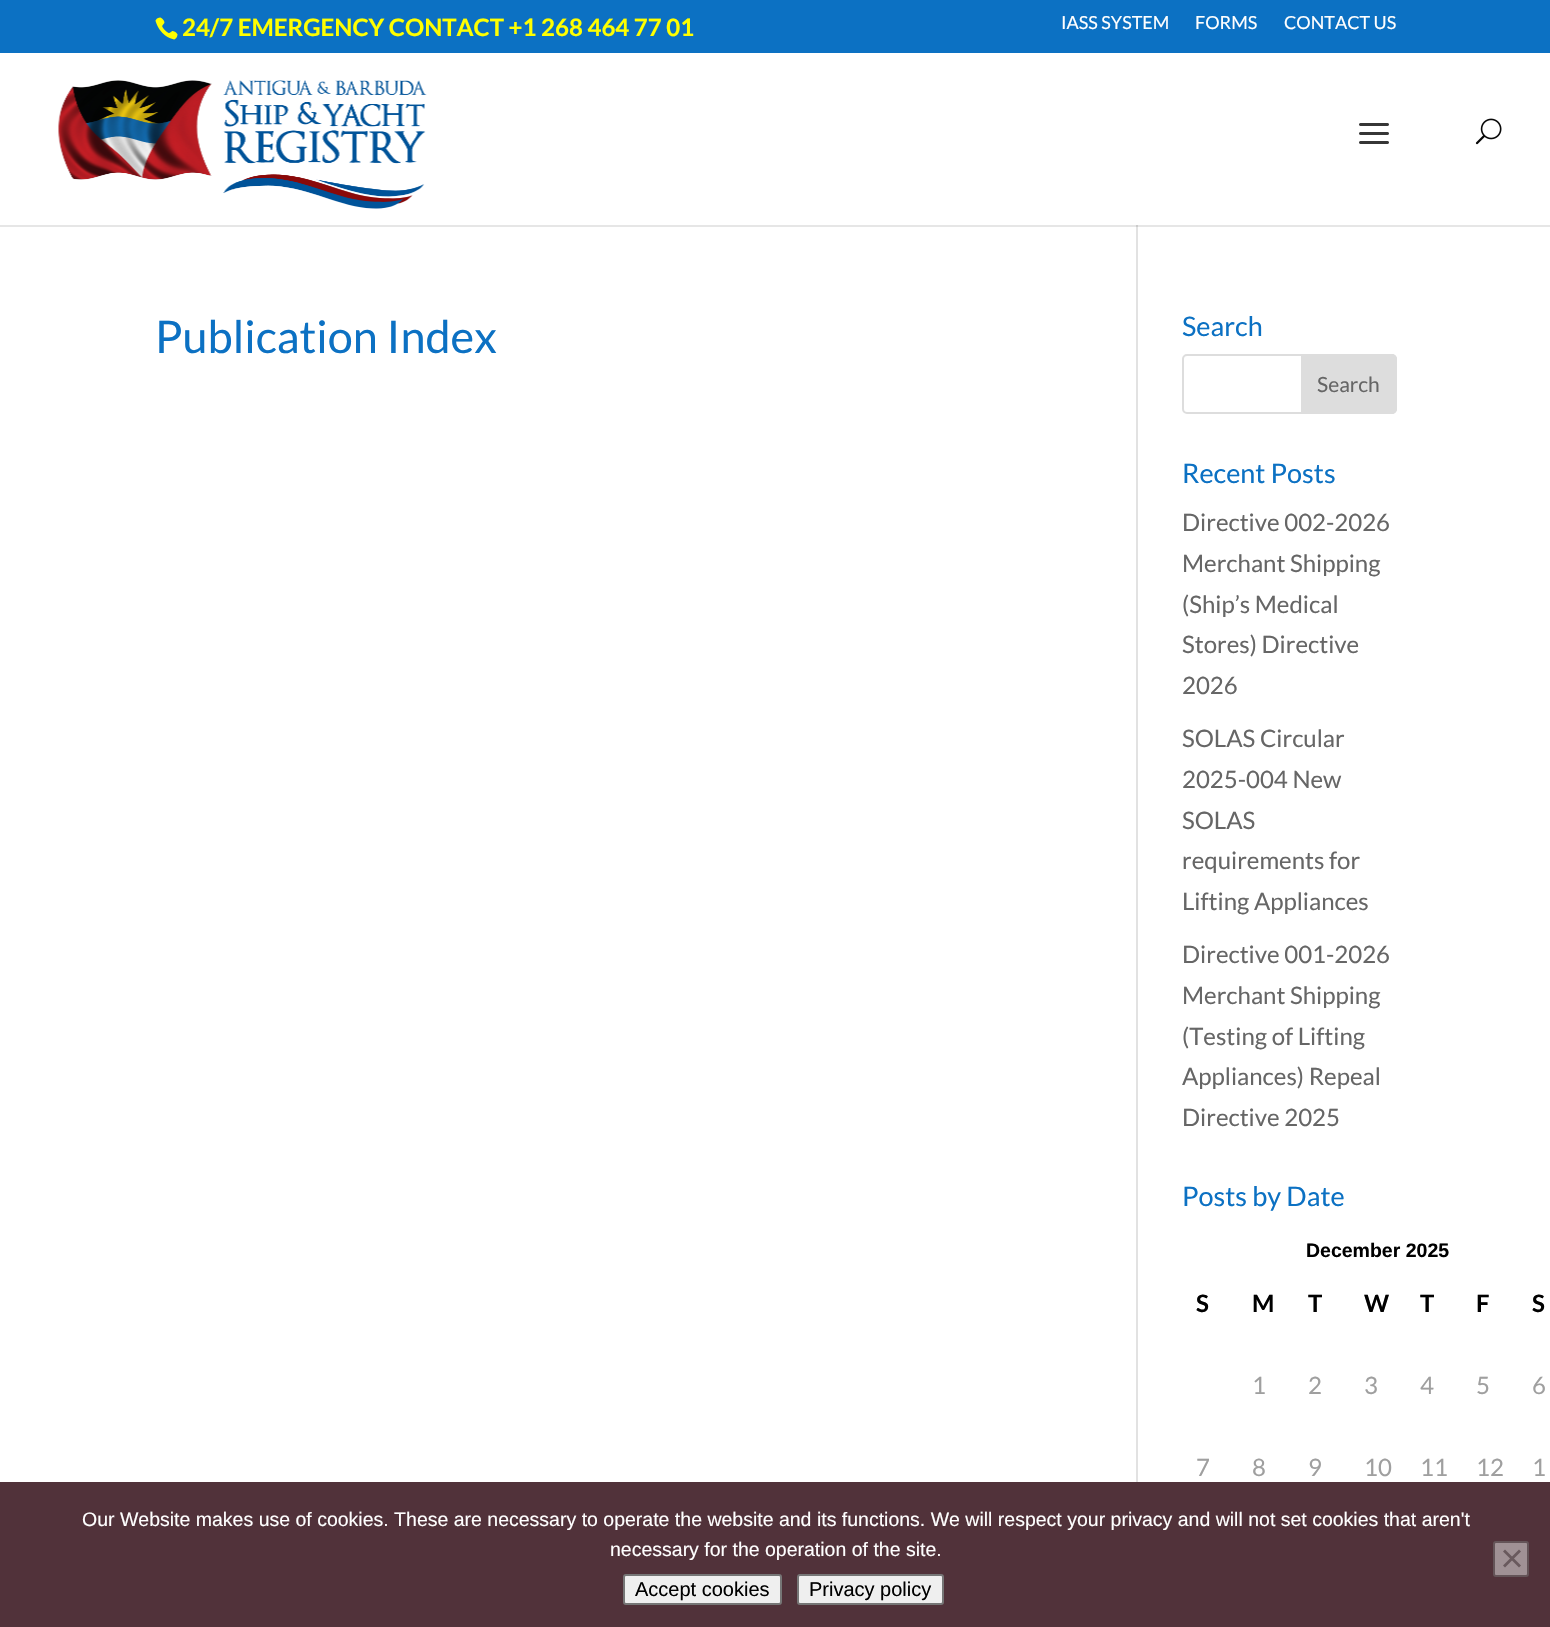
void draw(SkCanvas* canvas) {
	SkPaint paint;
	paint.setAntiAlias(true);
	auto svgPath = [&](const char* data, bool evenOdd = false) {
		SkPath result = *SkParsePath::FromSVGString(data);
		if (evenOdd) result.setFillType(SkPathFillType::kEvenOdd);
		return result;
	};
	canvas->clear(0xffffffff);
	paint.setColor(0xffe6e6e6);
	canvas->drawRect(SkRect::MakeXYWH(0, 225, 1550, 2), paint);
	paint.setColor(0xff0c71c3);
	canvas->drawRect(SkRect::MakeXYWH(0, 0, 1550, 53), paint);
	canvas->drawImageRect(SkImages::DeferredFromEncodedData(SkData::MakeFromFileName("img1.png")), SkRect::MakeXYWH(155, 17, 23, 23), SkSamplingOptions());
	SkFont f1(fontMgr->matchFamilyStyle("Lato", SkFontStyle::Bold()), 24);
	f1.setSubpixel(true);
	paint.setColor(0xffffff00);
	canvas->drawString("24/7 EMERGENCY CONTACT +1 268 464 77 01", 182, 36, f1, paint);
	SkFont f2(fontMgr->matchFamilyStyle("Lato", SkFontStyle::Normal()), 18);
	f2.setSubpixel(true);
	paint.setColor(0xffffffff);
	canvas->drawString("IASS SYSTEM", 1061, 29, f2, paint);
	canvas->drawString("FORMS", 1195, 29, f2, paint);
	canvas->drawString("CONTACT US", 1284, 29, f2, paint);
	canvas->drawImageRect(SkImages::DeferredFromEncodedData(SkData::MakeFromFileName("img2.png")), SkRect::MakeXYWH(58, 80, 369, 129), SkSamplingOptions());
	canvas->drawImageRect(SkImages::DeferredFromEncodedData(SkData::MakeFromFileName("img3.png")), SkRect::MakeXYWH(1359, 123, 30, 21), SkSamplingOptions());
	canvas->drawImageRect(SkImages::DeferredFromEncodedData(SkData::MakeFromFileName("img4.png")), SkRect::MakeXYWH(1475, 118, 27, 27), SkSamplingOptions());
	paint.setColor(0xffe2e2e2);
	canvas->drawRect(SkRect::MakeXYWH(1136, 225, 2, 1257), paint);
	paint.setColor(0xffcbcbcb);
	canvas->drawRect(SkRect::MakeXYWH(1136, 225, 2, 2), paint);
	SkFont f3(fontMgr->matchFamilyStyle("Lato", SkFontStyle::Normal()), 45);
	f3.setSubpixel(true);
	paint.setColor(0xff0c71c3);
	canvas->drawString("Publication Index", 155, 353, f3, paint);
	SkFont f4(fontMgr->matchFamilyStyle("Lato", SkFontStyle::Normal()), 27);
	f4.setSubpixel(true);
	canvas->drawString("Search", 1182, 336, f4, paint);
	paint.setStroke(true);
	paint.setStrokeWidth(2);
	paint.setColor(0xffdddddd);
	canvas->drawRoundRect(SkRect::MakeXYWH(1183, 355, 213, 58), 4, 4, paint);
	paint.setStroke(false);
	canvas->drawPath(svgPath("M1302 355H1392C1394 355 1396 357 1396 359V409C1396 411 1394 413 1392 413H1302Z"), paint);
	paint.setStroke(true);
	canvas->drawPath(svgPath("M1302 355H1392C1394 355 1396 357 1396 359V409C1396 411 1394 413 1392 413H1302Z"), paint);
	SkFont f5(fontMgr->matchFamilyStyle("Lato", SkFontStyle::Normal()), 21);
	f5.setSubpixel(true);
	paint.setStroke(false);
	paint.setColor(0xff666666);
	canvas->drawString("Search", 1317, 392, f5, paint);
	paint.setColor(0xff0c71c3);
	canvas->drawString("Recent Posts", 1182, 483, f4, paint);
	SkFont f6(fontMgr->matchFamilyStyle("Lato", SkFontStyle::Normal()), 24);
	f6.setSubpixel(true);
	paint.setColor(0xff666666);
	canvas->drawString("Directive 002-2026", 1182, 531, f6, paint);
	canvas->drawString("Merchant Shipping", 1182, 572, f6, paint);
	canvas->drawString("(Ship’s Medical", 1182, 613, f6, paint);
	canvas->drawString("Stores) Directive", 1182, 653, f6, paint);
	canvas->drawString("2026", 1182, 694, f6, paint);
	canvas->drawString("SOLAS Circular", 1182, 747, f6, paint);
	canvas->drawString("2025-004 New", 1182, 788, f6, paint);
	canvas->drawString("SOLAS", 1182, 829, f6, paint);
	canvas->drawString("requirements for", 1182, 869, f6, paint);
	canvas->drawString("Lifting Appliances", 1182, 910, f6, paint);
	canvas->drawString("Directive 001-2026", 1182, 963, f6, paint);
	canvas->drawString("Merchant Shipping", 1182, 1004, f6, paint);
	canvas->drawString("(Testing of Lifting", 1182, 1045, f6, paint);
	canvas->drawString("Appliances) Repeal", 1182, 1085, f6, paint);
	canvas->drawString("Directive 2025", 1182, 1126, f6, paint);
	paint.setColor(0xff0c71c3);
	canvas->drawString("Posts by Date", 1182, 1206, f4, paint);
	SkFont f7(fontMgr->matchFamilyStyle("Liberation Sans", SkFontStyle::Bold()), 19.5);
	f7.setSubpixel(true);
	paint.setColor(0xff000000);
	canvas->drawString("December 2025", 1306, 1257, f7, paint);
	canvas->drawString("S", 1196, 1312, f1, paint);
	canvas->drawString("M", 1252, 1312, f1, paint);
	canvas->drawString("T", 1308, 1312, f1, paint);
	canvas->drawString("W", 1364, 1312, f1, paint);
	canvas->drawString("T", 1420, 1312, f1, paint);
	canvas->drawString("F", 1476, 1312, f1, paint);
	canvas->drawString("S", 1532, 1312, f1, paint);
	paint.setColor(0xff9f9f9f);
	canvas->drawString("1", 1252, 1394, f6, paint);
	canvas->drawString("2", 1308, 1394, f6, paint);
	canvas->drawString("3", 1364, 1394, f6, paint);
	canvas->drawString("4", 1420, 1394, f6, paint);
	canvas->drawString("5", 1476, 1394, f6, paint);
	canvas->drawString("6", 1532, 1394, f6, paint);
	canvas->drawString("7", 1196, 1476, f6, paint);
	canvas->drawString("8", 1252, 1476, f6, paint);
	canvas->drawString("9", 1308, 1476, f6, paint);
	canvas->drawString("10", 1364, 1476, f6, paint);
	canvas->drawString("11", 1420, 1476, f6, paint);
	canvas->drawString("12", 1476, 1476, f6, paint);
	canvas->drawString("1", 1532, 1476, f6, paint);
	paint.setColor(0xff51323a);
	canvas->drawRect(SkRect::MakeXYWH(0, 1482, 1550, 145), paint);
	SkFont f8(fontMgr->matchFamilyStyle("Liberation Sans", SkFontStyle::Normal()), 19.5);
	f8.setSubpixel(true);
	paint.setColor(0xffffffff);
	canvas->drawString("Our Website makes use of cookies. These are necessary to operate the website and its functions. We will respect your privacy and will not set cookies that aren't", 82, 1526, f8, paint);
	canvas->drawString("necessary for the operation of the site.", 610, 1556, f8, paint);
	paint.setColor(0xffa09195);
	canvas->drawRoundRect(SkRect::MakeXYWH(1494, 1542, 34, 34), 2, 2, paint);
	paint.setStroke(true);
	paint.setColor(0xff645458);
	canvas->drawRoundRect(SkRect::MakeXYWH(1494, 1542, 34, 34), 2, 2, paint);
	paint.setStroke(false);
	paint.setColor(0xff69595d);
	canvas->drawPath(svgPath("M1519 1549.5L1521 1551.5L1505 1567.5L1503 1565.5Z"), paint);
	canvas->drawPath(svgPath("M1503 1551.5L1505 1549.5L1521 1565.5L1519 1567.5Z"), paint);
	paint.setColor(0xffefefef);
	canvas->drawRoundRect(SkRect::MakeXYWH(624, 1575, 157, 29), 2, 2, paint);
	paint.setStroke(true);
	paint.setColor(0xff767676);
	canvas->drawRoundRect(SkRect::MakeXYWH(624, 1575, 157, 29), 2, 2, paint);
	SkFont f9(fontMgr->matchFamilyStyle("Liberation Sans", SkFontStyle::Normal()), 20);
	f9.setSubpixel(true);
	paint.setStroke(false);
	paint.setColor(0xff000000);
	canvas->drawString("Accept cookies", 635, 1596, f9, paint);
	paint.setColor(0xffefefef);
	canvas->drawRoundRect(SkRect::MakeXYWH(798, 1575, 145, 29), 2, 2, paint);
	paint.setStroke(true);
	paint.setColor(0xff767676);
	canvas->drawRoundRect(SkRect::MakeXYWH(798, 1575, 145, 29), 2, 2, paint);
	paint.setStroke(false);
	paint.setColor(0xff000000);
	canvas->drawString("Privacy policy", 809, 1596, f9, paint);
}
